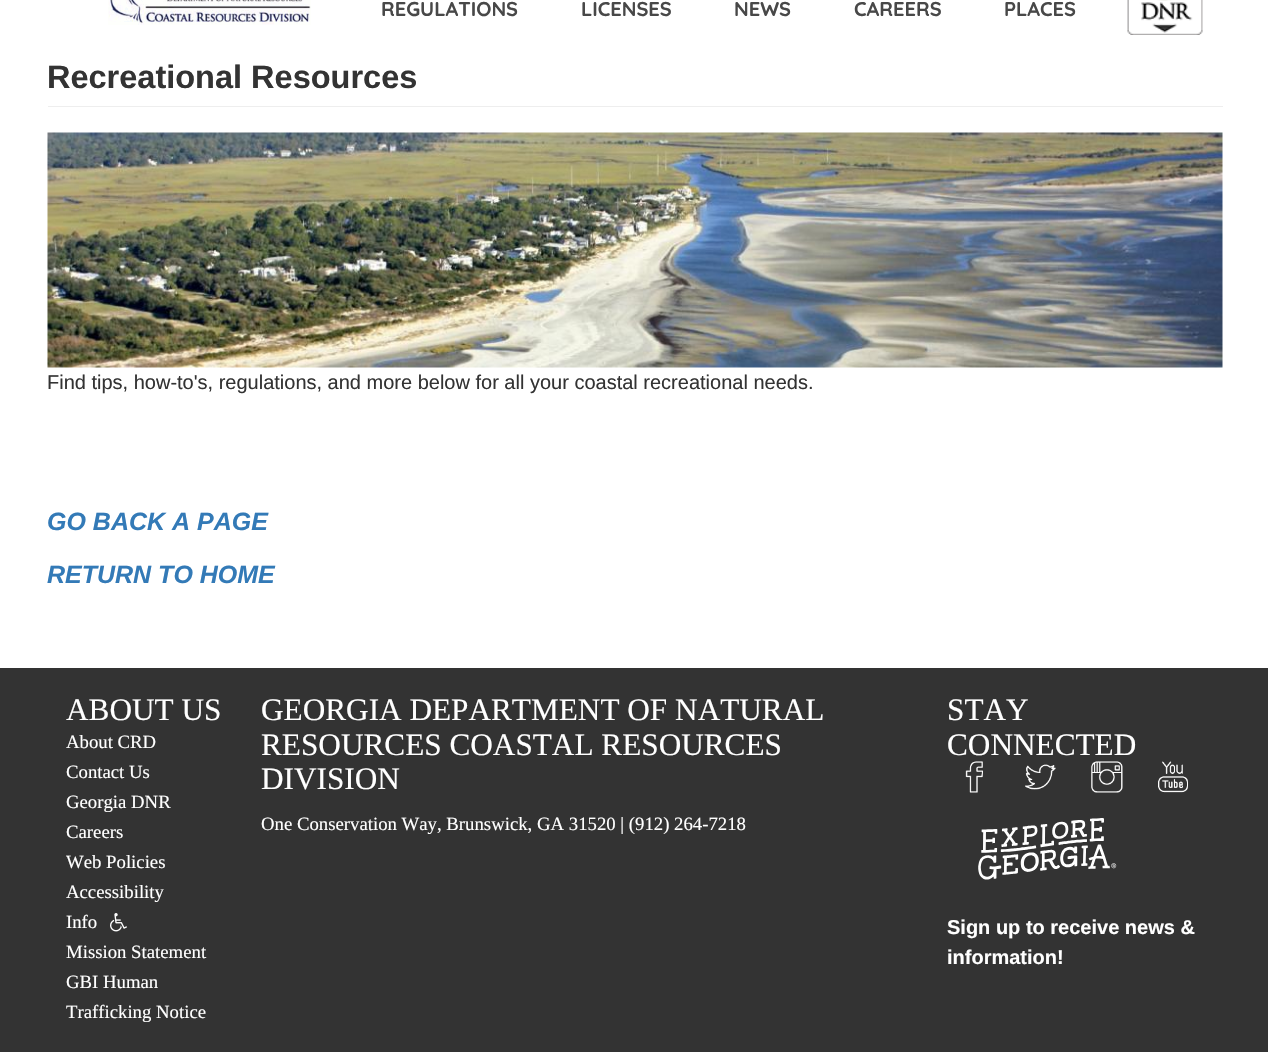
void draw(SkCanvas* canvas) {
	SkPaint paint;
	paint.setAntiAlias(true);
	canvas->clear(0xffffffff);
	canvas->drawImageRect(SkImages::DeferredFromEncodedData(SkData::MakeFromFileName("img1.png")), SkRect::MakeXYWH(108, 0, 203, 25), SkSamplingOptions());
	SkFont f1(fontMgr->matchFamilyStyle("Quicksand", SkFontStyle::Bold()), 20);
	f1.setSubpixel(true);
	paint.setColor(0xff484848);
	canvas->drawString("REGULATIONS", 381, 16, f1, paint);
	canvas->drawString("LICENSES", 581, 16, f1, paint);
	canvas->drawString("NEWS", 734, 16, f1, paint);
	canvas->drawString("CAREERS", 854, 16, f1, paint);
	canvas->drawString("PLACES", 1004, 16, f1, paint);
	canvas->drawImageRect(SkImages::DeferredFromEncodedData(SkData::MakeFromFileName("img2.png")), SkRect::MakeXYWH(1127, 0, 76, 35), SkSamplingOptions());
	paint.setColor(0xffeeeeee);
	canvas->drawRect(SkRect::MakeXYWH(48, 106, 1175, 1), paint);
	SkFont f2(fontMgr->matchFamilyStyle("Liberation Sans", SkFontStyle::Bold()), 32.5);
	f2.setSubpixel(true);
	paint.setColor(0xff333333);
	canvas->drawString("Recreational Resources", 47, 88, f2, paint);
	canvas->drawImageRect(SkImages::DeferredFromEncodedData(SkData::MakeFromFileName("img3.png")), SkRect::MakeXYWH(47, 132, 1176, 236), SkSamplingOptions());
	SkFont f3(fontMgr->matchFamilyStyle("Liberation Sans", SkFontStyle::Normal()), 20);
	f3.setSubpixel(true);
	canvas->drawString("Find tips, how-to's, regulations, and more below for all your coastal recreational needs.", 47, 389, f3, paint);
	SkFont f4(fontMgr->matchFamilyStyle("Liberation Sans", SkFontStyle::BoldItalic()), 25);
	f4.setSubpixel(true);
	paint.setColor(0xff337ab7);
	canvas->drawString("GO BACK A PAGE", 47, 530, f4, paint);
	canvas->drawString("RETURN TO HOME", 47, 583, f4, paint);
	paint.setColor(0xff333333);
	canvas->drawRect(SkRect::MakeXYWH(0, 668, 1268, 384), paint);
	SkFont f5(fontMgr->matchFamilyStyle("Liberation Serif", SkFontStyle::Normal()), 31.25);
	f5.setSubpixel(true);
	paint.setColor(0xffffffff);
	canvas->drawString("ABOUT US", 66, 720, f5, paint);
	SkFont f6(fontMgr->matchFamilyStyle("Liberation Serif", SkFontStyle::Normal()), 18.75);
	f6.setSubpixel(true);
	canvas->drawString("About CRD", 66, 748, f6, paint);
	canvas->drawString("Contact Us", 66, 778, f6, paint);
	canvas->drawString("Georgia DNR", 66, 808, f6, paint);
	canvas->drawString("Careers", 66, 838, f6, paint);
	canvas->drawString("Web Policies", 66, 868, f6, paint);
	canvas->drawString("Accessibility", 66, 898, f6, paint);
	canvas->drawString("Info", 66, 928, f6, paint);
	canvas->drawImageRect(SkImages::DeferredFromEncodedData(SkData::MakeFromFileName("img4.png")), SkRect::MakeXYWH(110, 913, 17, 19), SkSamplingOptions());
	canvas->drawString("Mission Statement", 66, 958, f6, paint);
	canvas->drawString("GBI Human", 66, 988, f6, paint);
	canvas->drawString("Trafficking Notice", 66, 1018, f6, paint);
	canvas->drawString("GEORGIA DEPARTMENT OF NATURAL", 261, 720, f5, paint);
	canvas->drawString("RESOURCES COASTAL RESOURCES", 261, 755, f5, paint);
	canvas->drawString("DIVISION", 261, 789, f5, paint);
	canvas->drawString("One Conservation Way, Brunswick, GA 31520 | (912) 264-7218", 261, 830, f6, paint);
	canvas->drawString("STAY", 947, 720, f5, paint);
	canvas->drawString("CONNECTED", 947, 755, f5, paint);
	canvas->drawImageRect(SkImages::DeferredFromEncodedData(SkData::MakeFromFileName("img5.png")), SkRect::MakeXYWH(965, 761, 18, 32), SkSamplingOptions());
	canvas->drawImageRect(SkImages::DeferredFromEncodedData(SkData::MakeFromFileName("img6.png")), SkRect::MakeXYWH(1025, 764, 31, 26), SkSamplingOptions());
	canvas->drawImageRect(SkImages::DeferredFromEncodedData(SkData::MakeFromFileName("img7.png")), SkRect::MakeXYWH(1091, 761, 32, 32), SkSamplingOptions());
	canvas->drawImageRect(SkImages::DeferredFromEncodedData(SkData::MakeFromFileName("img8.png")), SkRect::MakeXYWH(1158, 761, 30, 32), SkSamplingOptions());
	canvas->drawImageRect(SkImages::DeferredFromEncodedData(SkData::MakeFromFileName("img9.png")), SkRect::MakeXYWH(978, 818, 139, 62), SkSamplingOptions());
	SkFont f7(fontMgr->matchFamilyStyle("Liberation Sans", SkFontStyle::Bold()), 20);
	f7.setSubpixel(true);
	canvas->drawString("Sign up to receive news &", 947, 934, f7, paint);
	canvas->drawString("information!", 947, 964, f7, paint);
}
